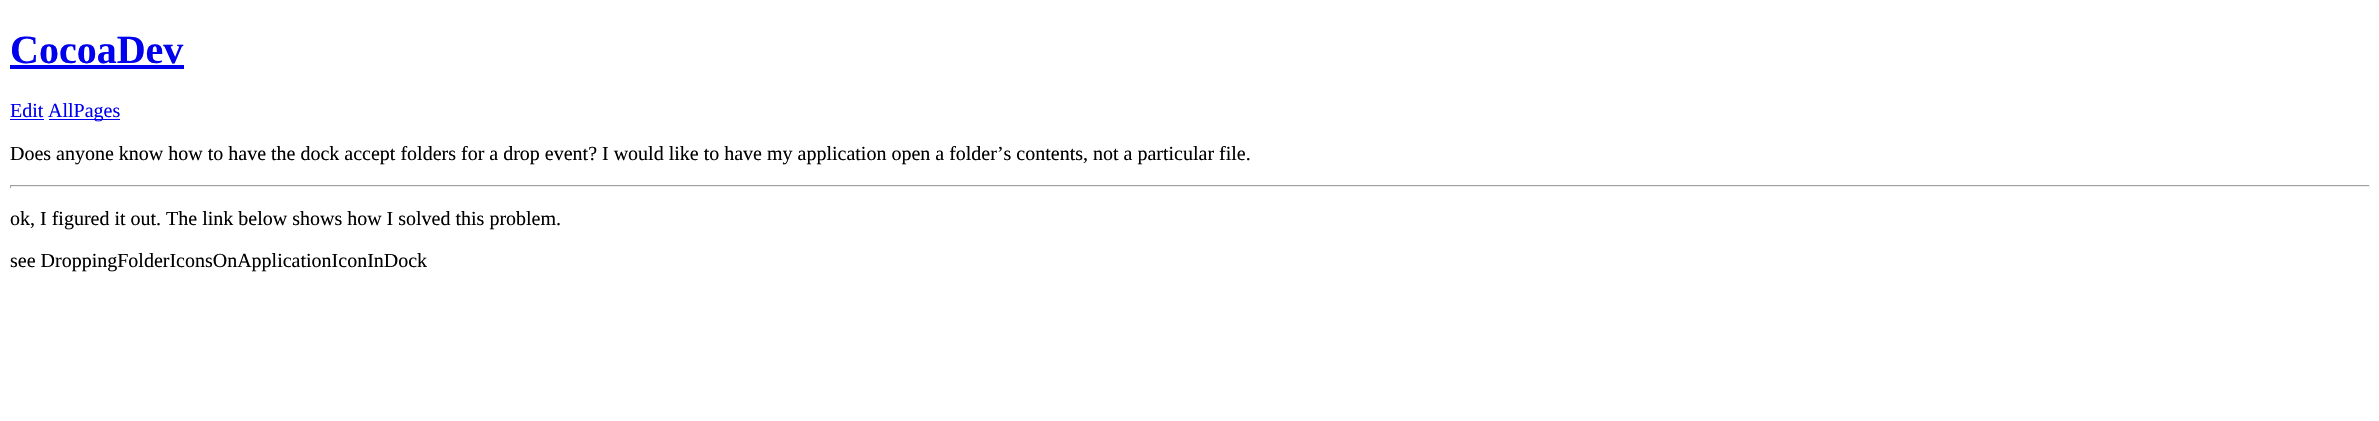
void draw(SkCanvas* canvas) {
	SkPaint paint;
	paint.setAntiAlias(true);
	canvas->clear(0xffffffff);
	SkFont f1(fontMgr->matchFamilyStyle("Liberation Serif", SkFontStyle::Bold()), 40);
	f1.setSubpixel(true);
	paint.setColor(0xff0000ee);
	canvas->drawString("CocoaDev", 10, 63, f1, paint);
	canvas->drawRect(SkRect::MakeXYWH(10, 65, 174, 4), paint);
	SkFont f2(fontMgr->matchFamilyStyle("Liberation Serif", SkFontStyle::Normal()), 20);
	f2.setSubpixel(true);
	canvas->drawString("Edit", 10, 117, f2, paint);
	canvas->drawRect(SkRect::MakeXYWH(10, 119, 34, 1), paint);
	canvas->drawRect(SkRect::MakeXYWH(49, 119, 71, 1), paint);
	canvas->drawString("AllPages", 48, 117, f2, paint);
	paint.setColor(0xff000000);
	canvas->drawString("Does anyone know how to have the dock accept folders for a drop event? I would like to have my application open a folder’s contents, not a particular file.", 10, 160, f2, paint);
	paint.setColor(0xff9f9f9f);
	canvas->drawRect(SkRect::MakeXYWH(10, 185, 2360, 1), paint);
	paint.setColor(0xffeeeeee);
	canvas->drawRect(SkRect::MakeXYWH(2369, 185, 1, 3), paint);
	canvas->drawRect(SkRect::MakeXYWH(10, 186, 2360, 1), paint);
	paint.setColor(0xff9f9f9f);
	canvas->drawRect(SkRect::MakeXYWH(10, 185, 1, 3), paint);
	paint.setColor(0xff000000);
	canvas->drawString("ok, I figured it out. The link below shows how I solved this problem.", 10, 225, f2, paint);
	canvas->drawString("see DroppingFolderIconsOnApplicationIconInDock", 10, 267, f2, paint);
}
